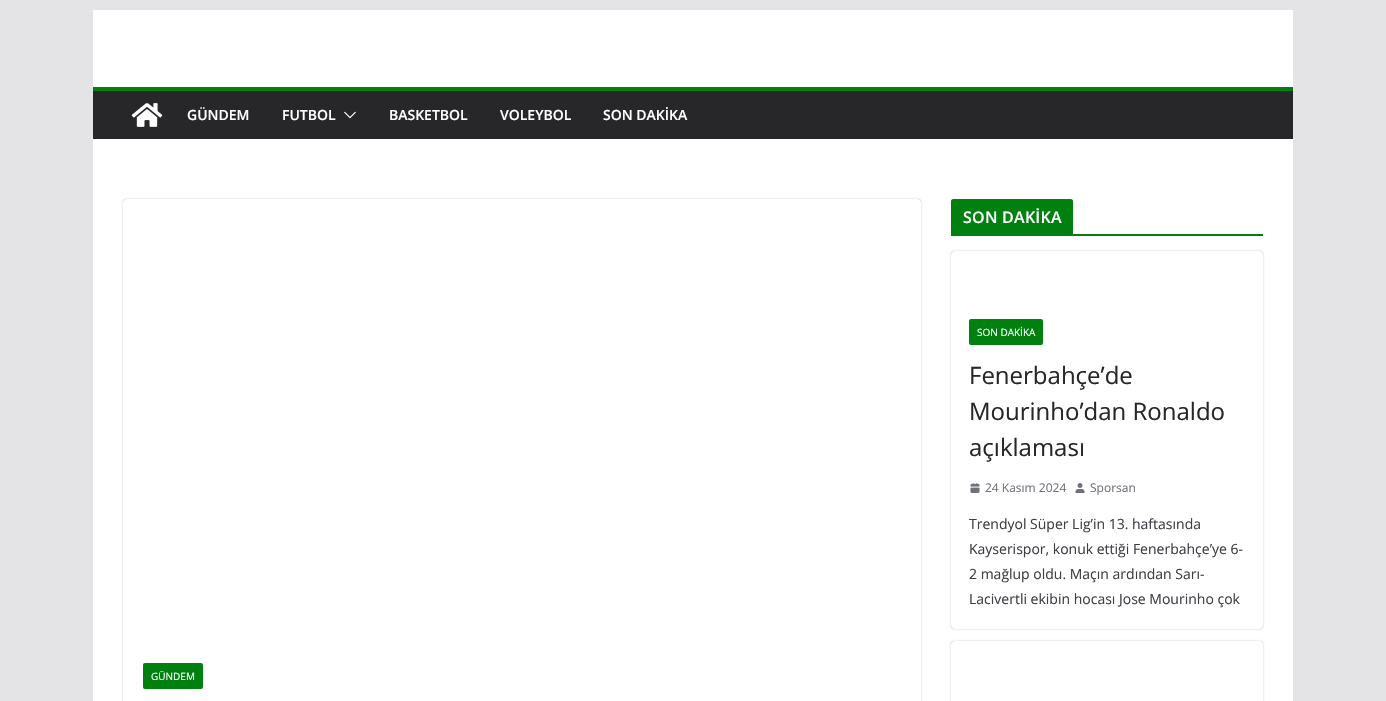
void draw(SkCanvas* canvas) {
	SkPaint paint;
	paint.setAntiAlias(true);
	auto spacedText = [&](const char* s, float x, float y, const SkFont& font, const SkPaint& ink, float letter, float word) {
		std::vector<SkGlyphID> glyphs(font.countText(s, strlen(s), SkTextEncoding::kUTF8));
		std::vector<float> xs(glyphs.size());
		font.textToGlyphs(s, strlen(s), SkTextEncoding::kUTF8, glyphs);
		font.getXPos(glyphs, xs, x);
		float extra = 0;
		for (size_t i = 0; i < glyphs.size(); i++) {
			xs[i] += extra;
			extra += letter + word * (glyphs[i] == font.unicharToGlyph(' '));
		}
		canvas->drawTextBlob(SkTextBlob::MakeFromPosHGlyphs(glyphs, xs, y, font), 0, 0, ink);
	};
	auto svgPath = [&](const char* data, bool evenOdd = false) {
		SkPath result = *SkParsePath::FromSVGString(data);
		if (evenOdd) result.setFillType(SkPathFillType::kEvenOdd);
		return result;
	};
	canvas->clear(0xffe4e4e7);
	paint.setColor(0xffffffff);
	canvas->drawRect(SkRect::MakeXYWH(93, 10, 1200, 77), paint);
	paint.setColor(0xff27272a);
	canvas->drawRect(SkRect::MakeXYWH(93, 91, 1200, 48), paint);
	paint.setColor(0xff00810f);
	canvas->drawRect(SkRect::MakeXYWH(93, 87, 1200, 4), paint);
	canvas->drawImageRect(SkImages::DeferredFromEncodedData(SkData::MakeFromFileName("img1.png")), SkRect::MakeXYWH(131, 103, 32, 24), SkSamplingOptions());
	SkFont f1(fontMgr->matchFamilyStyle("Open Sans", SkFontStyle(600, SkFontStyle::kNormal_Width, SkFontStyle::kUpright_Slant)), 14);
	f1.setSubpixel(true);
	paint.setColor(0xffffffff);
	canvas->drawString("GÜNDEM", 187, 120, f1, paint);
	canvas->drawString("FUTBOL", 282, 120, f1, paint);
	canvas->drawImageRect(SkImages::DeferredFromEncodedData(SkData::MakeFromFileName("img2.png")), SkRect::MakeXYWH(344, 111, 12, 8), SkSamplingOptions());
	canvas->drawString("BASKETBOL", 389, 120, f1, paint);
	canvas->drawString("VOLEYBOL", 500, 120, f1, paint);
	canvas->drawString("SON DAKİKA", 603, 120, f1, paint);
	canvas->drawRect(SkRect::MakeXYWH(93, 139, 1200, 562), paint);
	paint.setColor(0xff00810f);
	canvas->drawRect(SkRect::MakeXYWH(951, 234, 312, 2), paint);
	canvas->drawPath(svgPath("M953 199H1071C1072 199 1073 200 1073 201V234H951V201C951 200 952 199 953 199Z"), paint);
	SkFont f2(fontMgr->matchFamilyStyle("Open Sans", SkFontStyle(600, SkFontStyle::kNormal_Width, SkFontStyle::kUpright_Slant)), 16);
	f2.setSubpixel(true);
	paint.setColor(0xffffffff);
	spacedText("SON DAKİKA", 963, 223, f2, paint, 0.25, 0);
	canvas->save();
	canvas->clipPath(svgPath("M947 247H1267V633H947ZM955 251H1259C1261 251 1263 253 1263 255V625C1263 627 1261 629 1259 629H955C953 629 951 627 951 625V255C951 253 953 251 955 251Z", true), true);
	paint.setColor(0x3d000000);
	paint.setMaskFilter(SkMaskFilter::MakeBlur(kNormal_SkBlurStyle, 1));
	canvas->drawRoundRect(SkRect::MakeXYWH(951, 251, 312, 378), 4, 4, paint);
	paint.setMaskFilter(nullptr);
	canvas->restore();
	paint.setColor(0xff00810f);
	canvas->drawRoundRect(SkRect::MakeXYWH(969, 319, 74, 26), 2, 2, paint);
	SkFont f3(fontMgr->matchFamilyStyle("Open Sans", SkFontStyle::Normal()), 10);
	f3.setSubpixel(true);
	paint.setColor(0xffffffff);
	canvas->drawString("SON DAKİKA", 977, 336, f3, paint);
	SkFont f4(fontMgr->matchFamilyStyle("Open Sans", SkFontStyle::Normal()), 24);
	f4.setSubpixel(true);
	paint.setColor(0xff27272a);
	canvas->drawString("Fenerbahçe’de", 969, 384, f4, paint);
	canvas->drawString("Mourinho’dan Ronaldo", 969, 420, f4, paint);
	canvas->drawString("açıklaması", 969, 456, f4, paint);
	canvas->drawImageRect(SkImages::DeferredFromEncodedData(SkData::MakeFromFileName("img3.png")), SkRect::MakeXYWH(970, 483, 10, 10), SkSamplingOptions());
	SkFont f5(fontMgr->matchFamilyStyle("Open Sans", SkFontStyle::Normal()), 12);
	f5.setSubpixel(true);
	paint.setColor(0xff71717a);
	canvas->drawString("24 Kasım 2024", 985, 492, f5, paint);
	canvas->drawImageRect(SkImages::DeferredFromEncodedData(SkData::MakeFromFileName("img4.png")), SkRect::MakeXYWH(1075, 483, 10, 10), SkSamplingOptions());
	canvas->drawString("Sporsan", 1090, 492, f5, paint);
	SkFont f6(fontMgr->matchFamilyStyle("Open Sans", SkFontStyle::Normal()), 14);
	f6.setSubpixel(true);
	paint.setColor(0xff3f3f46);
	canvas->drawString("Trendyol Süper Lig’in 13. haftasında", 969, 529, f6, paint);
	canvas->drawString("Kayserispor, konuk ettiği Fenerbahçe’ye 6-", 969, 554, f6, paint);
	canvas->drawString("2 mağlup oldu. Maçın ardından Sarı-", 969, 579, f6, paint);
	canvas->drawString("Lacivertli ekibin hocası Jose Mourinho çok", 969, 604, f6, paint);
	canvas->save();
	canvas->clipPath(svgPath("M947 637H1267V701H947ZM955 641H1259C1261 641 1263 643 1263 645V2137C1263 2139 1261 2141 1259 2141H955C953 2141 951 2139 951 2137V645C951 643 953 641 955 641Z", true), true);
	paint.setColor(0x3d000000);
	paint.setMaskFilter(SkMaskFilter::MakeBlur(kNormal_SkBlurStyle, 1));
	canvas->drawRoundRect(SkRect::MakeXYWH(951, 641, 312, 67), 4, 4, paint);
	paint.setMaskFilter(nullptr);
	canvas->restore();
	canvas->save();
	canvas->clipPath(svgPath("M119 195H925V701H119ZM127 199H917C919 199 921 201 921 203V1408C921 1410 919 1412 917 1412H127C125 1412 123 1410 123 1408V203C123 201 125 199 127 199Z", true), true);
	paint.setMaskFilter(SkMaskFilter::MakeBlur(kNormal_SkBlurStyle, 1));
	canvas->drawRoundRect(SkRect::MakeXYWH(123, 199, 798, 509), 4, 4, paint);
	paint.setMaskFilter(nullptr);
	canvas->restore();
	paint.setColor(0xff00810f);
	canvas->drawRoundRect(SkRect::MakeXYWH(143, 663, 60, 26), 2, 2, paint);
	paint.setColor(0xffffffff);
	canvas->drawString("GÜNDEM", 151, 680, f3, paint);
}
